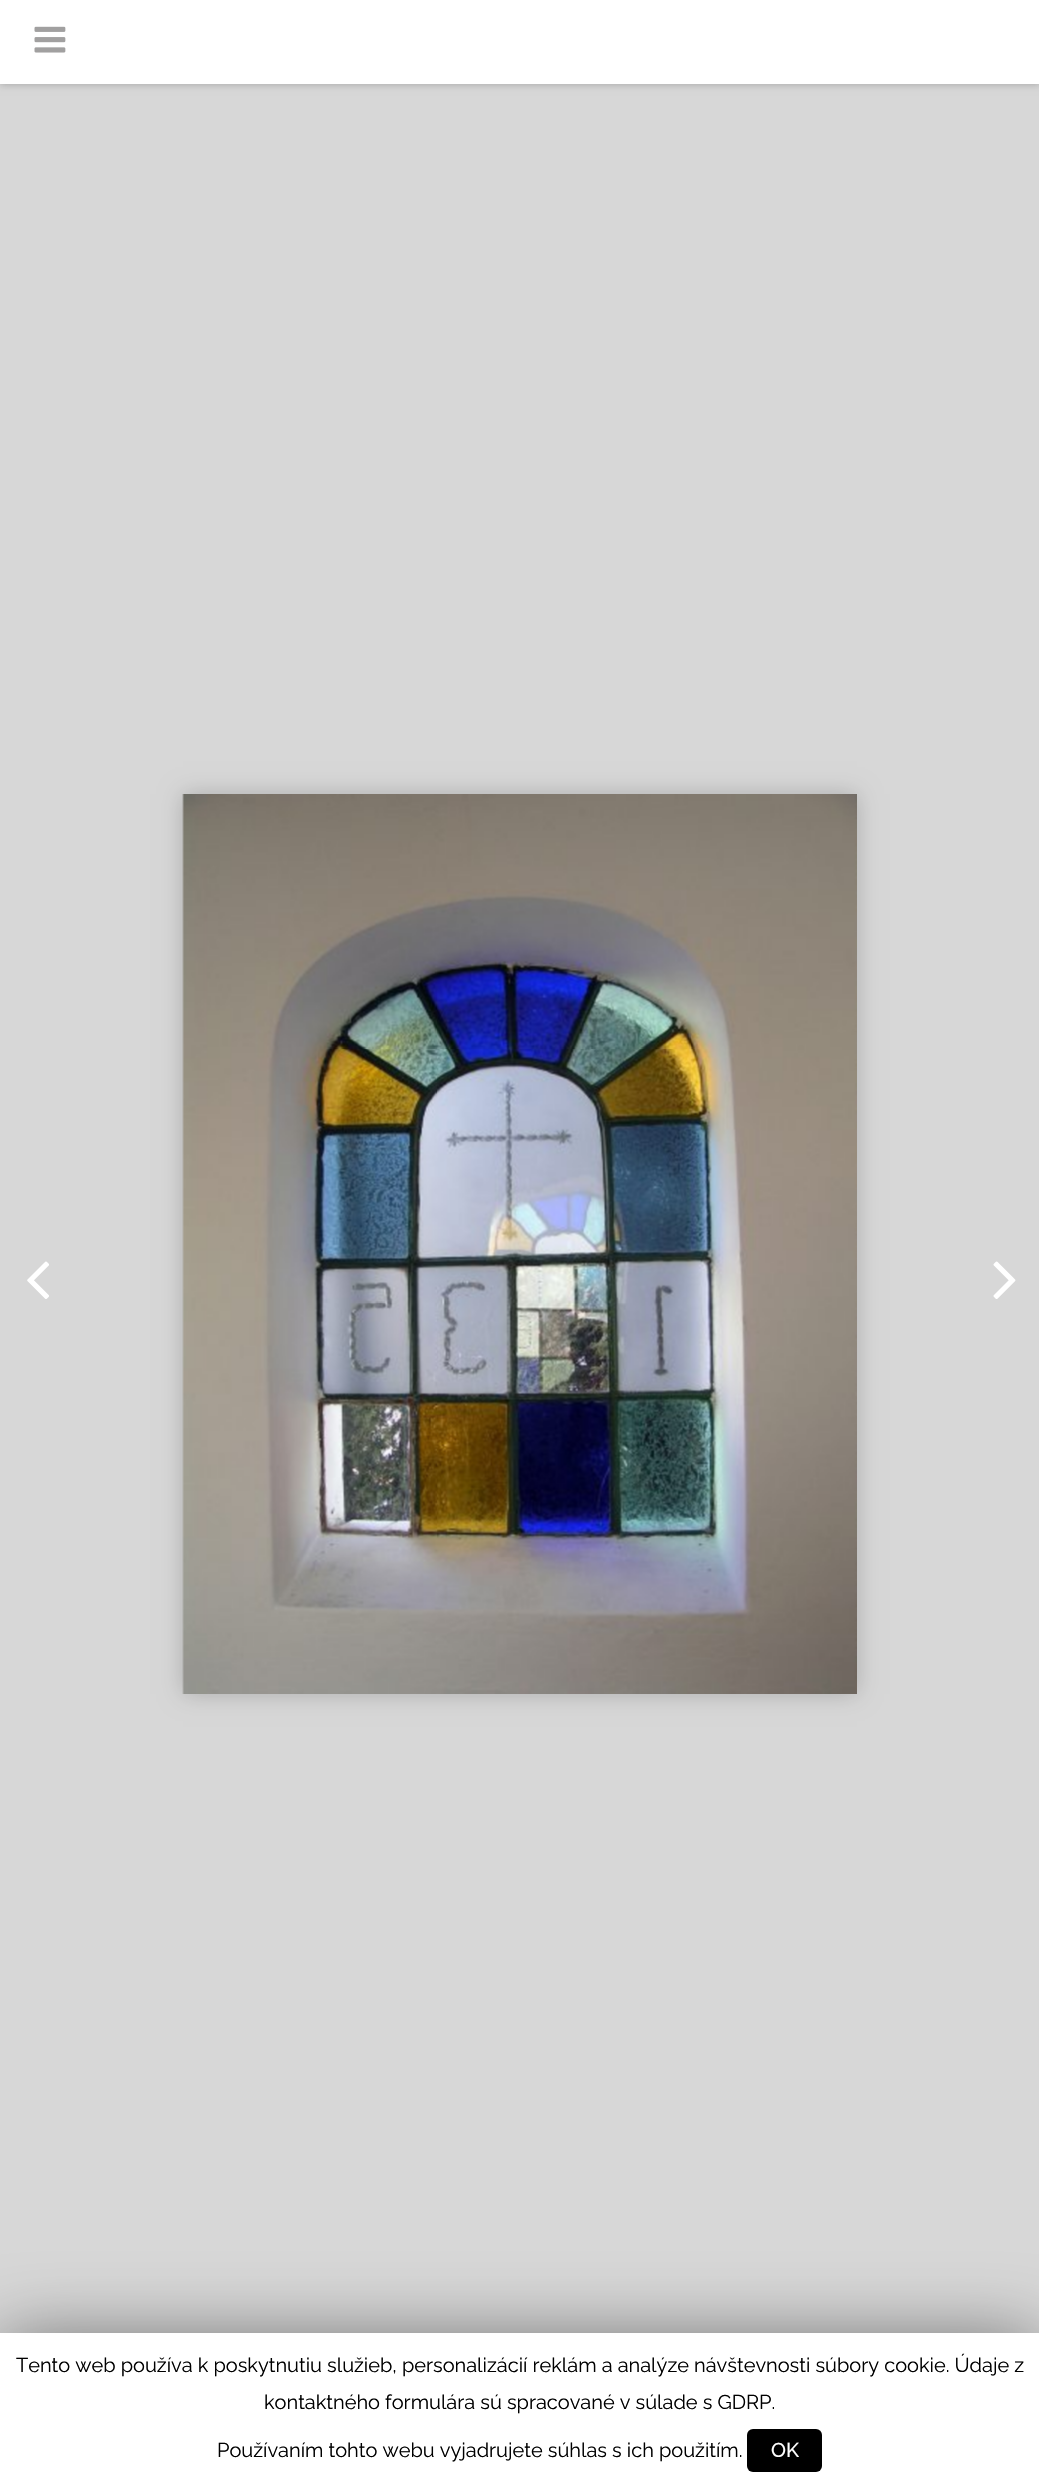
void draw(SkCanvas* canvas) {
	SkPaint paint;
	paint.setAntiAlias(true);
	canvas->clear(0xffd7d7d7);
	paint.setColor(0x40000000);
	paint.setMaskFilter(SkMaskFilter::MakeBlur(kNormal_SkBlurStyle, 4));
	canvas->drawRect(SkRect::MakeXYWH(0, 0, 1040, 84), paint);
	paint.setMaskFilter(nullptr);
	paint.setColor(0xffffffff);
	canvas->drawRect(SkRect::MakeXYWH(0, 0, 1039, 84), paint);
	canvas->drawImageRect(SkImages::DeferredFromEncodedData(SkData::MakeFromFileName("img1.png")), SkRect::MakeXYWH(34, 26, 32, 27), SkSamplingOptions());
	canvas->drawImageRect(SkImages::DeferredFromEncodedData(SkData::MakeFromFileName("img2.png")), SkRect::MakeXYWH(27, 1261, 22, 38), SkSamplingOptions());
	paint.setColor(0x33000000);
	paint.setMaskFilter(SkMaskFilter::MakeBlur(kNormal_SkBlurStyle, 11));
	canvas->drawRect(SkRect::MakeXYWH(183, 794, 674, 900), paint);
	paint.setMaskFilter(nullptr);
	canvas->drawImageRect(SkImages::DeferredFromEncodedData(SkData::MakeFromFileName("img3.png")), SkRect::MakeXYWH(182, 794, 675, 900), SkSamplingOptions());
	canvas->drawImageRect(SkImages::DeferredFromEncodedData(SkData::MakeFromFileName("img4.png")), SkRect::MakeXYWH(993, 1261, 23, 38), SkSamplingOptions());
	paint.setColor(0x80000000);
	paint.setMaskFilter(SkMaskFilter::MakeBlur(kNormal_SkBlurStyle, 37.5));
	canvas->drawRect(SkRect::MakeXYWH(0, 2340, 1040, 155), paint);
	paint.setMaskFilter(nullptr);
	paint.setColor(0xffffffff);
	canvas->drawRect(SkRect::MakeXYWH(0, 2333, 1039, 154), paint);
	SkFont f1(fontMgr->matchFamilyStyle("Raleway", SkFontStyle::Normal()), 20);
	f1.setSubpixel(true);
	paint.setColor(0xff000000);
	canvas->drawString("Tento web používa k poskytnutiu služieb, personalizácií reklám a analýze návštevnosti súbory cookie. Údaje z", 16, 2372, f1, paint);
	canvas->drawString("kontaktného formulára sú spracované v súlade s GDRP.", 264, 2409, f1, paint);
	canvas->drawString("Používaním tohto webu vyjadrujete súhlas s ich použitím.", 217, 2457, f1, paint);
	canvas->drawRoundRect(SkRect::MakeXYWH(747, 2429, 75, 43), 6, 6, paint);
	SkFont f2(fontMgr->matchFamilyStyle("Raleway", SkFontStyle(500, SkFontStyle::kNormal_Width, SkFontStyle::kUpright_Slant)), 20);
	f2.setSubpixel(true);
	paint.setColor(0xffffffff);
	canvas->drawString("OK", 771, 2457, f2, paint);
}
